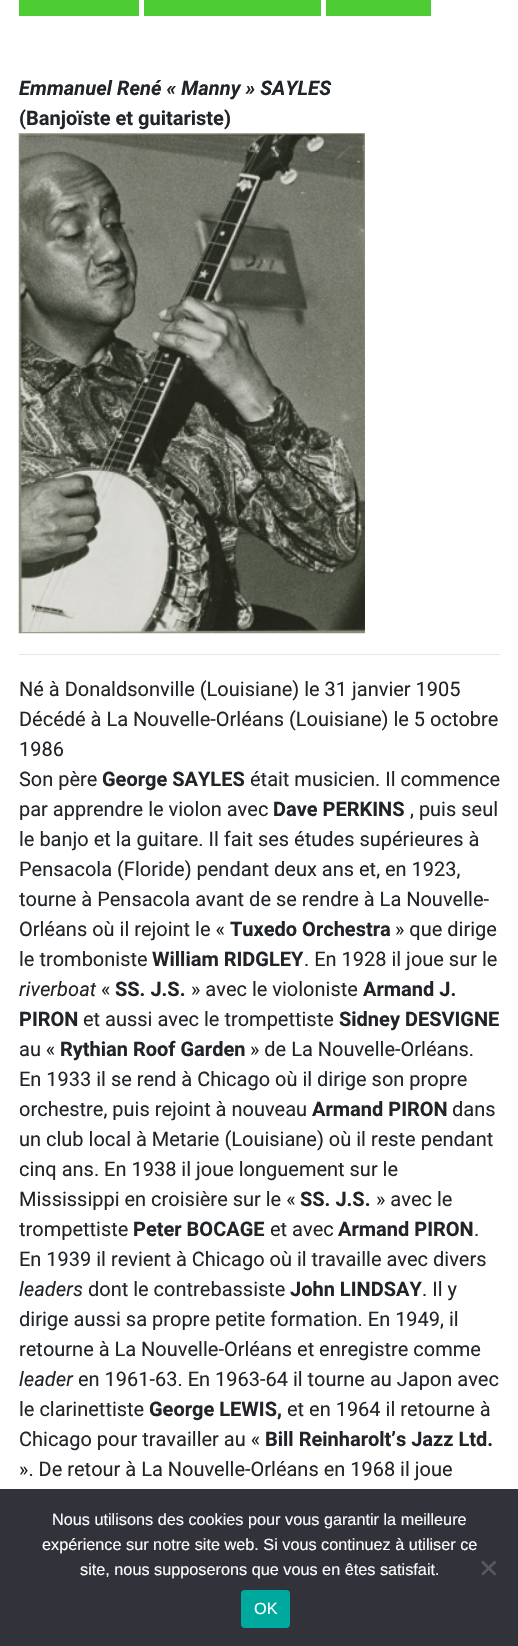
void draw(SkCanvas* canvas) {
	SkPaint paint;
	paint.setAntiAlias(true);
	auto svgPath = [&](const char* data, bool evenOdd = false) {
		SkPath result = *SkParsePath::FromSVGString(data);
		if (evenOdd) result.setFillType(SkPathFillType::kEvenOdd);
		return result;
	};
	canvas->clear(0xffffffff);
	paint.setColor(0xff4dcd33);
	canvas->drawRect(SkRect::MakeXYWH(19, 0, 120, 16), paint);
	canvas->drawRect(SkRect::MakeXYWH(144, 0, 177, 16), paint);
	canvas->drawRect(SkRect::MakeXYWH(326, 0, 105, 16), paint);
	SkFont f1(fontMgr->matchFamilyStyle("Roboto", SkFontStyle::BoldItalic()), 20);
	f1.setSubpixel(true);
	paint.setColor(0xff212529);
	canvas->drawString("Emmanuel René « Manny » SAYLES", 19, 95, f1, paint);
	SkFont f2(fontMgr->matchFamilyStyle("Roboto", SkFontStyle::Bold()), 20);
	f2.setSubpixel(true);
	canvas->drawString("(Banjoïste et guitariste)", 19, 125, f2, paint);
	canvas->drawImageRect(SkImages::DeferredFromEncodedData(SkData::MakeFromFileName("img1.png")), SkRect::MakeXYWH(18, 133, 347, 501), SkSamplingOptions());
	paint.setColor(0xffe6e6e6);
	canvas->drawRect(SkRect::MakeXYWH(19, 654, 481, 1), paint);
	SkFont f3(fontMgr->matchFamilyStyle("Roboto", SkFontStyle::Normal()), 20);
	f3.setSubpixel(true);
	paint.setColor(0xff212529);
	canvas->drawString("Né à Donaldsonville (Louisiane) le 31 janvier 1905", 19, 696, f3, paint);
	canvas->drawString("Décédé à La Nouvelle-Orléans (Louisiane) le 5 octobre", 19, 726, f3, paint);
	canvas->drawString("1986", 19, 756, f3, paint);
	canvas->drawString("Son père", 19, 786, f3, paint);
	canvas->drawString("George SAYLES", 102, 786, f2, paint);
	canvas->drawString("était musicien. Il commence", 250, 786, f3, paint);
	canvas->drawString("par apprendre le violon avec", 19, 816, f3, paint);
	canvas->drawString("Dave PERKINS", 273, 816, f2, paint);
	canvas->drawString(", puis seul", 410, 816, f3, paint);
	canvas->drawString("le banjo et la guitare. Il fait ses études supérieures à", 19, 846, f3, paint);
	canvas->drawString("Pensacola (Floride) pendant deux ans et, en 1923,", 19, 876, f3, paint);
	canvas->drawString("tourne à Pensacola avant de se rendre à La Nouvelle-", 19, 906, f3, paint);
	canvas->drawString("Orléans où il rejoint le «", 19, 936, f3, paint);
	canvas->drawString("Tuxedo Orchestra", 230, 936, f2, paint);
	canvas->drawString("» que dirige", 395, 936, f3, paint);
	canvas->drawString("le tromboniste", 19, 966, f3, paint);
	canvas->drawString("William RIDGLEY", 152, 966, f2, paint);
	canvas->drawString(". En 1928 il joue sur le", 304, 966, f3, paint);
	SkFont f4(fontMgr->matchFamilyStyle("Roboto", SkFontStyle::Italic()), 20);
	f4.setSubpixel(true);
	canvas->drawString("riverboat", 19, 996, f4, paint);
	canvas->drawString("«", 101, 996, f3, paint);
	canvas->drawString("SS. J.S.", 115, 996, f2, paint);
	canvas->drawString("» avec le violoniste", 191, 996, f3, paint);
	canvas->drawString("Armand J.", 363, 996, f2, paint);
	canvas->drawString("PIRON", 19, 1026, f2, paint);
	canvas->drawString("et aussi avec le trompettiste", 83, 1026, f3, paint);
	canvas->drawString("Sidney DESVIGNE", 339, 1026, f2, paint);
	canvas->drawString("au «", 19, 1056, f3, paint);
	canvas->drawString("Rythian Roof Garden", 60, 1056, f2, paint);
	canvas->drawString("» de La Nouvelle-Orléans.", 250, 1056, f3, paint);
	canvas->drawString("En 1933 il se rend à Chicago où il dirige son propre", 19, 1086, f3, paint);
	canvas->drawString("orchestre, puis rejoint à nouveau", 19, 1116, f3, paint);
	canvas->drawString("Armand PIRON", 312, 1116, f2, paint);
	canvas->drawString("dans", 452, 1116, f3, paint);
	canvas->drawString("un club local à Metarie (Louisiane) où il reste pendant", 19, 1146, f3, paint);
	canvas->drawString("cinq ans. En 1938 il joue longuement sur le", 19, 1176, f3, paint);
	canvas->drawString("Mississippi en croisière sur le «", 19, 1206, f3, paint);
	canvas->drawString("SS. J.S.", 300, 1206, f2, paint);
	canvas->drawString("» avec le", 376, 1206, f3, paint);
	canvas->drawString("trompettiste", 19, 1236, f3, paint);
	canvas->drawString("Peter BOCAGE", 133, 1236, f2, paint);
	canvas->drawString("et avec", 270, 1236, f3, paint);
	canvas->drawString("Armand PIRON", 338, 1236, f2, paint);
	canvas->drawString(".", 474, 1236, f3, paint);
	canvas->drawString("En 1939 il revient à Chicago où il travaille avec divers", 19, 1266, f3, paint);
	canvas->drawString("leaders", 19, 1296, f4, paint);
	canvas->drawString("dont le contrebassiste", 88, 1296, f3, paint);
	canvas->drawString("John LINDSAY", 290, 1296, f2, paint);
	canvas->drawString(". Il y", 422, 1296, f3, paint);
	canvas->drawString("dirige aussi sa propre petite formation. En 1949, il", 19, 1326, f3, paint);
	canvas->drawString("retourne à La Nouvelle-Orléans et enregistre comme", 19, 1356, f3, paint);
	canvas->drawString("leader", 19, 1386, f4, paint);
	canvas->drawString("en 1961-63. En 1963-64 il tourne au Japon avec", 78, 1386, f3, paint);
	canvas->drawString("le clarinettiste", 19, 1416, f3, paint);
	canvas->drawString("George LEWIS,", 149, 1416, f2, paint);
	canvas->drawString("et en 1964 il retourne à", 287, 1416, f3, paint);
	canvas->drawString("Chicago pour travailler au «", 19, 1446, f3, paint);
	canvas->drawString("Bill Reinharolt’s Jazz Ltd.", 265, 1446, f2, paint);
	canvas->drawString("». De retour à La Nouvelle-Orléans en 1968 il joue", 19, 1476, f3, paint);
	paint.setColor(0xff32323a);
	canvas->drawRect(SkRect::MakeXYWH(0, 1489, 518, 157), paint);
	SkFont f5(fontMgr->matchFamilyStyle("Liberation Sans", SkFontStyle::Normal()), 16.25);
	f5.setSubpixel(true);
	paint.setColor(0xffffffff);
	canvas->drawString("Nous utilisons des cookies pour vous garantir la meilleure", 52, 1525, f5, paint);
	canvas->drawString("expérience sur notre site web. Si vous continuez à utiliser ce", 42, 1550, f5, paint);
	canvas->drawString("site, nous supposerons que vous en êtes satisfait.", 80, 1575, f5, paint);
	paint.setColor(0xff59595d);
	canvas->drawPath(svgPath("M494.5 1560.5L496.5 1562.5L483 1575.5L481 1574Z"), paint);
	canvas->drawPath(svgPath("M481 1562.5L483 1560.5L496.5 1574L494.5 1575.5Z"), paint);
	paint.setColor(0xff00a99d);
	canvas->drawRoundRect(SkRect::MakeXYWH(241, 1590, 49, 38), 4, 4, paint);
	paint.setColor(0xffffffff);
	canvas->drawString("OK", 254, 1614, f5, paint);
}
